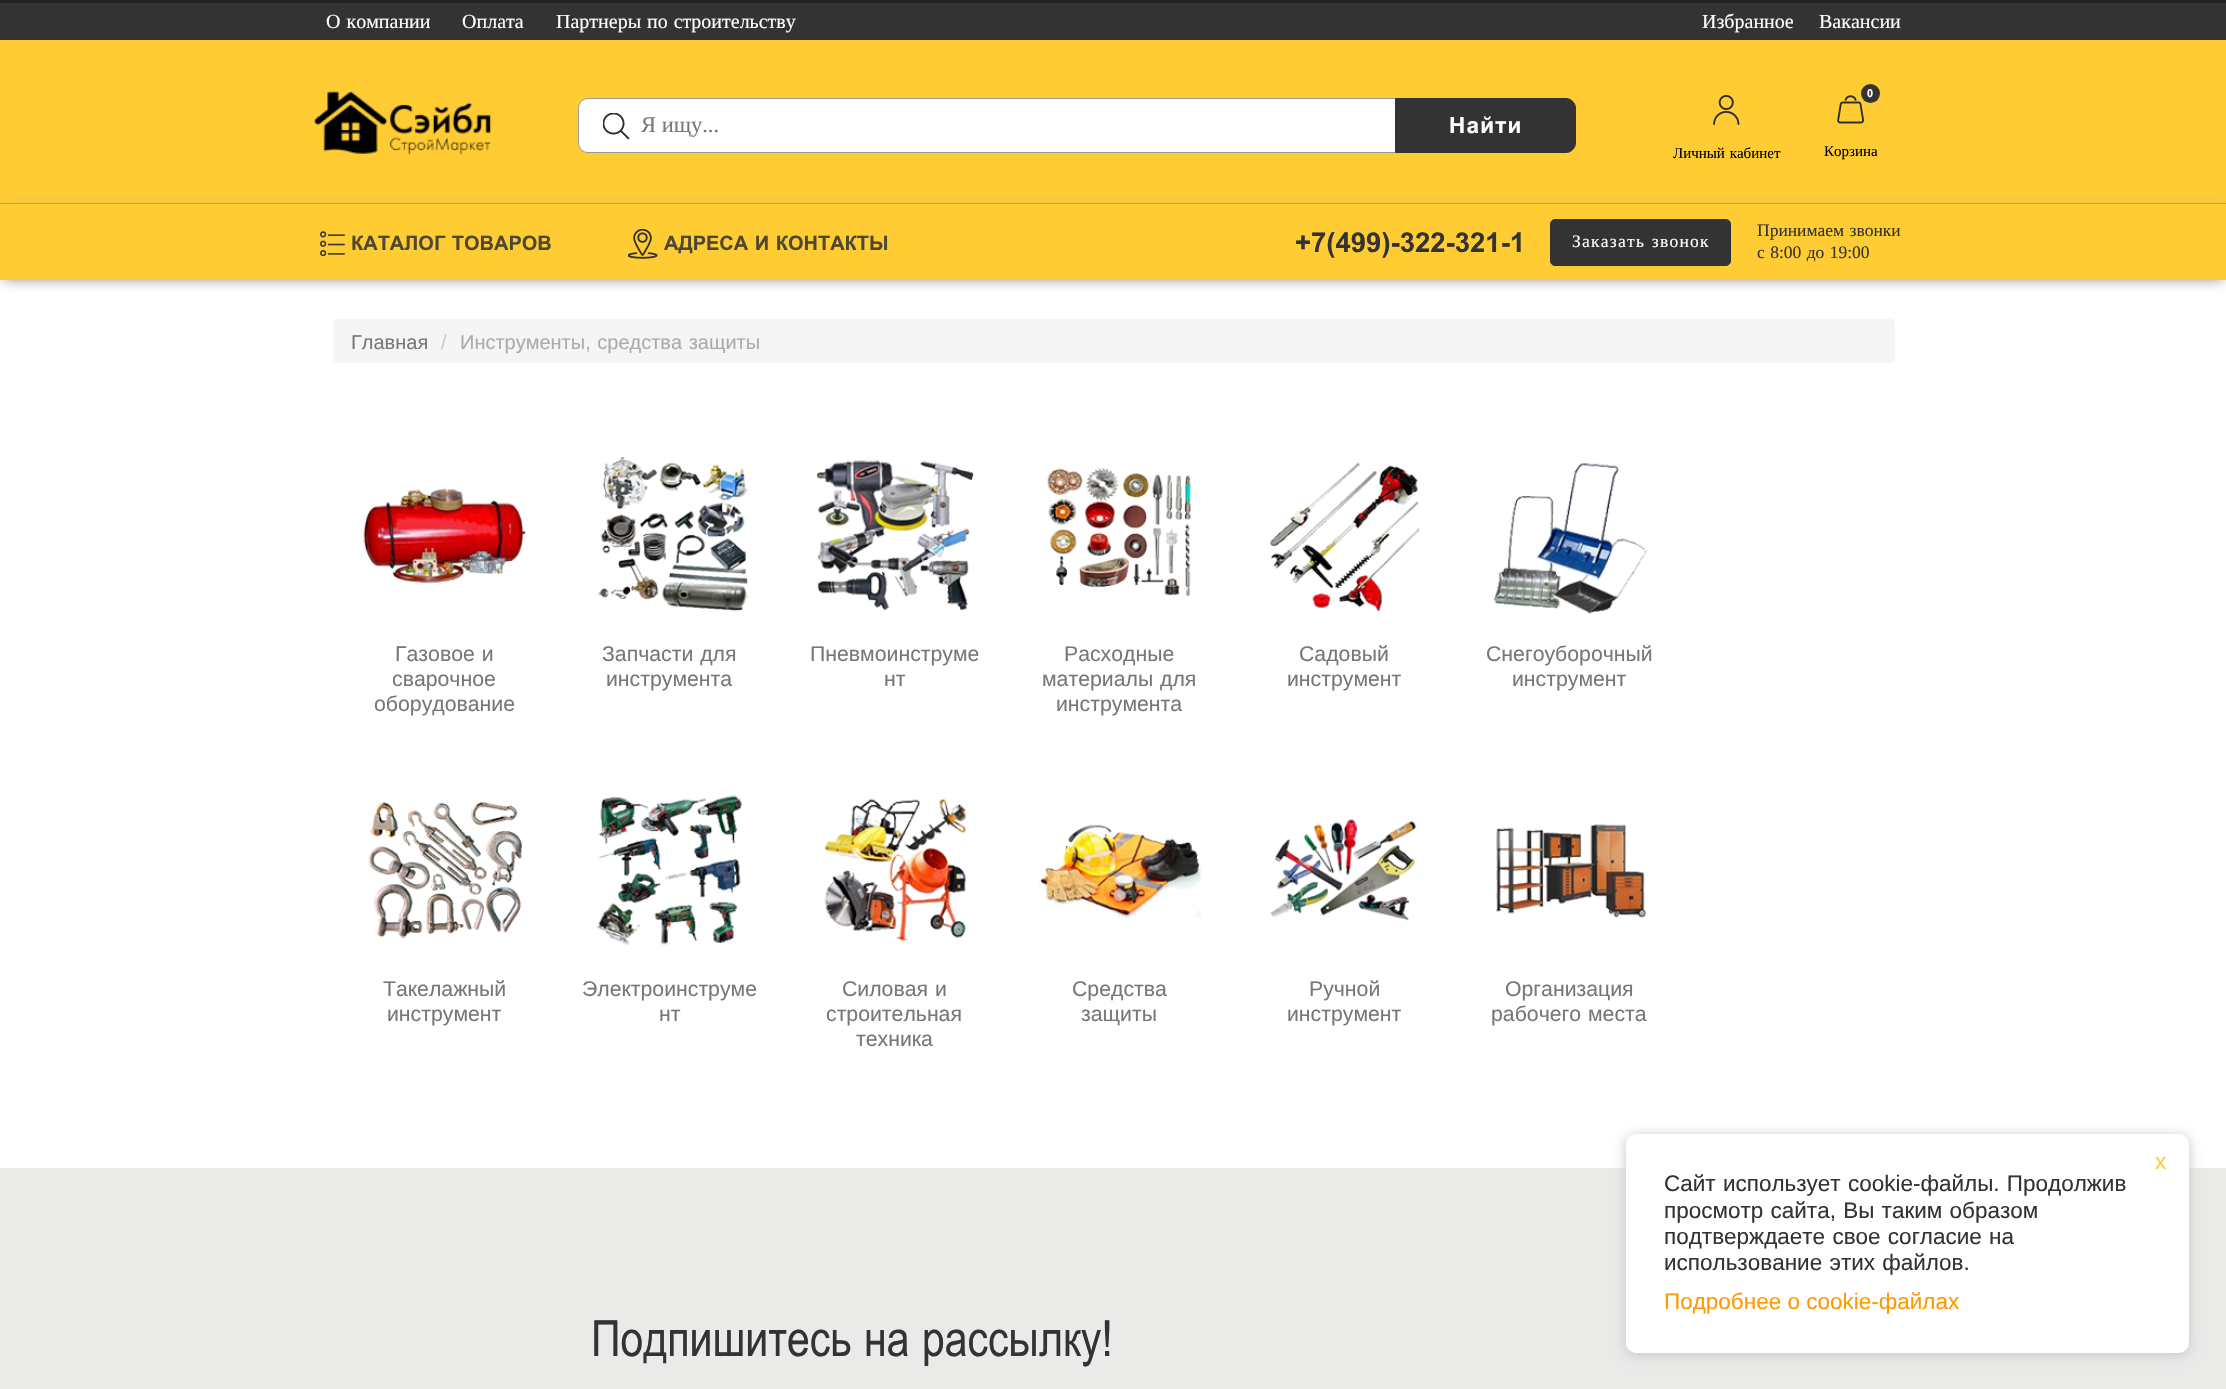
void draw(SkCanvas* canvas) {
	SkPaint paint;
	paint.setAntiAlias(true);
	auto spacedText = [&](const char* s, float x, float y, const SkFont& font, const SkPaint& ink, float letter, float word) {
		std::vector<SkGlyphID> glyphs(font.countText(s, strlen(s), SkTextEncoding::kUTF8));
		std::vector<float> xs(glyphs.size());
		font.textToGlyphs(s, strlen(s), SkTextEncoding::kUTF8, glyphs);
		font.getXPos(glyphs, xs, x);
		float extra = 0;
		for (size_t i = 0; i < glyphs.size(); i++) {
			xs[i] += extra;
			extra += letter + word * (glyphs[i] == font.unicharToGlyph(' '));
		}
		canvas->drawTextBlob(SkTextBlob::MakeFromPosHGlyphs(glyphs, xs, y, font), 0, 0, ink);
	};
	auto svgPath = [&](const char* data, bool evenOdd = false) {
		SkPath result = *SkParsePath::FromSVGString(data);
		if (evenOdd) result.setFillType(SkPathFillType::kEvenOdd);
		return result;
	};
	canvas->clear(0xffffffff);
	paint.setColor(0xff333333);
	canvas->drawRect(SkRect::MakeXYWH(0, 3, 2226, 37), paint);
	paint.setColor(0xff222222);
	canvas->drawRect(SkRect::MakeXYWH(0, 0, 2226, 3), paint);
	SkFont f1(fontMgr->matchFamilyStyle("Liberation Serif", SkFontStyle::Normal()), 20);
	f1.setSubpixel(true);
	paint.setColor(0xffffffff);
	spacedText("О компании", 326, 28, f1, paint, 0, 1);
	canvas->drawString("Оплата", 462, 28, f1, paint);
	canvas->drawString("Партнеры", 556, 28, f1, paint);
	spacedText("по строительству", 647, 28, f1, paint, 0, 1);
	canvas->drawString("Избранное", 1702, 28, f1, paint);
	canvas->drawString("Вакансии", 1819, 28, f1, paint);
	paint.setColor(0xffffcc33);
	canvas->drawRect(SkRect::MakeXYWH(0, 40, 2226, 163), paint);
	canvas->drawImageRect(SkImages::DeferredFromEncodedData(SkData::MakeFromFileName("img1.png")), SkRect::MakeXYWH(313, 91, 179, 64), SkSamplingOptions());
	paint.setColor(0xffffffff);
	canvas->drawPath(svgPath("M588 98.5H1395.5V152.5H588C583 152.5 578.5 148 578.5 143V108C578.5 103 583 98.5 588 98.5Z"), paint);
	paint.setStroke(true);
	paint.setStrokeWidth(1);
	paint.setColor(0xff999999);
	canvas->drawPath(svgPath("M588 98.5H1395.5V152.5H588C583 152.5 578.5 148 578.5 143V108C578.5 103 583 98.5 588 98.5Z"), paint);
	canvas->drawImageRect(SkImages::DeferredFromEncodedData(SkData::MakeFromFileName("img2.png")), SkRect::MakeXYWH(603, 113, 27, 27), SkSamplingOptions());
	SkFont f2(fontMgr->matchFamilyStyle("Liberation Serif", SkFontStyle::Normal()), 22.5);
	f2.setSubpixel(true);
	paint.setStroke(false);
	paint.setColor(0xff777777);
	canvas->drawString("Я ищу...", 641, 132, f2, paint);
	paint.setColor(0xff333333);
	canvas->drawPath(svgPath("M1395.5 98.5H1566C1571 98.5 1575.5 103 1575.5 108V143C1575.5 148 1571 152.5 1566 152.5H1395.5Z"), paint);
	paint.setStroke(true);
	canvas->drawPath(svgPath("M1395.5 98.5H1566C1571 98.5 1575.5 103 1575.5 108V143C1575.5 148 1571 152.5 1566 152.5H1395.5Z"), paint);
	SkFont f3(fontMgr->matchFamilyStyle("Arial", SkFontStyle::Bold()), 22.5);
	f3.setSubpixel(true);
	paint.setStroke(false);
	paint.setColor(0xffffffff);
	spacedText("Найти", 1449, 133, f3, paint, 1.25, 0);
	canvas->drawImageRect(SkImages::DeferredFromEncodedData(SkData::MakeFromFileName("img3.png")), SkRect::MakeXYWH(1713, 95, 27, 30), SkSamplingOptions());
	SkFont f4(fontMgr->matchFamilyStyle("Liberation Serif", SkFontStyle::Normal()), 15);
	f4.setSubpixel(true);
	paint.setColor(0xff000000);
	spacedText("Личный кабинет", 1673, 158, f4, paint, 0, 1);
	canvas->drawImageRect(SkImages::DeferredFromEncodedData(SkData::MakeFromFileName("img4.png")), SkRect::MakeXYWH(1837, 95, 27, 29), SkSamplingOptions());
	paint.setColor(0xff333333);
	canvas->drawCircle(1870.5, 93.5, 9.5, paint);
	SkFont f5(fontMgr->matchFamilyStyle("Arial", SkFontStyle::Bold()), 11);
	f5.setSubpixel(true);
	paint.setColor(0xffffffff);
	canvas->drawString("0", 1867, 97, f5, paint);
	paint.setColor(0xff000000);
	canvas->drawString("Корзина", 1824, 156, f4, paint);
	paint.setColor(0xff999999);
	paint.setMaskFilter(SkMaskFilter::MakeBlur(kNormal_SkBlurStyle, 6));
	canvas->drawRect(SkRect::MakeXYWH(4, 210, 2219, 70), paint);
	paint.setMaskFilter(nullptr);
	paint.setColor(0xffffcc33);
	canvas->drawRect(SkRect::MakeXYWH(0, 204, 2226, 76), paint);
	paint.setColor(0xffc29e33);
	canvas->drawRect(SkRect::MakeXYWH(0, 203, 2226, 1), paint);
	canvas->drawImageRect(SkImages::DeferredFromEncodedData(SkData::MakeFromFileName("img5.png")), SkRect::MakeXYWH(320, 231, 25, 25), SkSamplingOptions());
	SkFont f6(fontMgr->matchFamilyStyle("Arial", SkFontStyle::Bold()), 20);
	f6.setSubpixel(true);
	paint.setColor(0xff4e4733);
	spacedText("КАТАЛОГ ТОВАРОВ", 351, 250, f6, paint, 0, 1);
	canvas->drawImageRect(SkImages::DeferredFromEncodedData(SkData::MakeFromFileName("img6.png")), SkRect::MakeXYWH(628, 229, 30, 30), SkSamplingOptions());
	spacedText("АДРЕСА И КОНТАКТЫ", 664, 250, f6, paint, 0, 1);
	SkFont f7(fontMgr->matchFamilyStyle("Arial", SkFontStyle::Bold()), 27.5);
	f7.setSubpixel(true);
	paint.setColor(0xff333333);
	canvas->drawString("+7(499)-322-321-1", 1295, 252, f7, paint);
	canvas->drawRoundRect(SkRect::MakeXYWH(1550.5, 219.5, 180, 46), 4.5, 4.5, paint);
	paint.setStroke(true);
	canvas->drawRoundRect(SkRect::MakeXYWH(1550.5, 219.5, 180, 46), 4.5, 4.5, paint);
	SkFont f8(fontMgr->matchFamilyStyle("Liberation Serif", SkFontStyle::Normal()), 17.5);
	f8.setSubpixel(true);
	paint.setStroke(false);
	paint.setColor(0xffffffff);
	spacedText("Заказать звонок", 1572, 247, f8, paint, 1.25, 1);
	paint.setColor(0xff333333);
	spacedText("Принимаем звонки", 1757, 236, f8, paint, 0, 1);
	spacedText("с 8:00 до 19:00", 1757, 258, f8, paint, 0, 1);
	paint.setColor(0xfff5f5f5);
	canvas->drawRoundRect(SkRect::MakeXYWH(333, 319, 1562, 44), 5, 5, paint);
	SkFont f9(fontMgr->matchFamilyStyle("Liberation Sans", SkFontStyle::Normal()), 20);
	f9.setSubpixel(true);
	paint.setColor(0xff777777);
	canvas->drawString("Главная", 351, 349, f9, paint);
	paint.setColor(0xffcccccc);
	canvas->drawString("/", 441, 349, f9, paint);
	paint.setColor(0xffababab);
	spacedText("Инструменты, средства защиты", 460, 349, f9, paint, 0, 1);
	canvas->drawImageRect(SkImages::DeferredFromEncodedData(SkData::MakeFromFileName("img7.png")), SkRect::MakeXYWH(363, 488, 163, 96), SkSamplingOptions());
	SkFont f10(fontMgr->matchFamilyStyle("Liberation Sans", SkFontStyle::Normal()), 21.25);
	f10.setSubpixel(true);
	paint.setColor(0xff777777);
	spacedText("Газовое и", 395, 661, f10, paint, 0, 1);
	canvas->drawString("сварочное", 392, 686, f10, paint);
	canvas->drawString("оборудование", 374, 711, f10, paint);
	canvas->drawImageRect(SkImages::DeferredFromEncodedData(SkData::MakeFromFileName("img8.png")), SkRect::MakeXYWH(598, 457, 151, 154), SkSamplingOptions());
	spacedText("Запчасти для", 602, 661, f10, paint, 0, 1);
	canvas->drawString("инструмента", 606, 686, f10, paint);
	canvas->drawImageRect(SkImages::DeferredFromEncodedData(SkData::MakeFromFileName("img9.png")), SkRect::MakeXYWH(816, 460, 158, 150), SkSamplingOptions());
	canvas->drawString("Пневмоинструме", 810, 661, f10, paint);
	canvas->drawString("нт", 884, 686, f10, paint);
	canvas->drawImageRect(SkImages::DeferredFromEncodedData(SkData::MakeFromFileName("img10.png")), SkRect::MakeXYWH(1047, 467, 145, 129), SkSamplingOptions());
	canvas->drawString("Расходные", 1064, 661, f10, paint);
	spacedText("материалы для", 1042, 686, f10, paint, 0, 1);
	canvas->drawString("инструмента", 1056, 711, f10, paint);
	canvas->drawImageRect(SkImages::DeferredFromEncodedData(SkData::MakeFromFileName("img11.png")), SkRect::MakeXYWH(1270, 462, 150, 149), SkSamplingOptions());
	canvas->drawString("Садовый", 1299, 661, f10, paint);
	canvas->drawString("инструмент", 1287, 686, f10, paint);
	canvas->drawImageRect(SkImages::DeferredFromEncodedData(SkData::MakeFromFileName("img12.png")), SkRect::MakeXYWH(1493, 463, 154, 152), SkSamplingOptions());
	canvas->drawString("Снегоуборочный", 1486, 661, f10, paint);
	canvas->drawString("инструмент", 1512, 686, f10, paint);
	canvas->drawImageRect(SkImages::DeferredFromEncodedData(SkData::MakeFromFileName("img13.png")), SkRect::MakeXYWH(368, 801, 154, 138), SkSamplingOptions());
	canvas->drawString("Такелажный", 383, 996, f10, paint);
	canvas->drawString("инструмент", 387, 1021, f10, paint);
	canvas->drawImageRect(SkImages::DeferredFromEncodedData(SkData::MakeFromFileName("img14.png")), SkRect::MakeXYWH(597, 795, 145, 150), SkSamplingOptions());
	canvas->drawString("Электроинструме", 582, 996, f10, paint);
	canvas->drawString("нт", 659, 1021, f10, paint);
	canvas->drawImageRect(SkImages::DeferredFromEncodedData(SkData::MakeFromFileName("img15.png")), SkRect::MakeXYWH(823, 797, 144, 146), SkSamplingOptions());
	spacedText("Силовая и", 842, 996, f10, paint, 0, 1);
	canvas->drawString("строительная", 826, 1021, f10, paint);
	canvas->drawString("техника", 856, 1046, f10, paint);
	canvas->drawImageRect(SkImages::DeferredFromEncodedData(SkData::MakeFromFileName("img16.png")), SkRect::MakeXYWH(1039, 824, 163, 95), SkSamplingOptions());
	canvas->drawString("Средства", 1072, 996, f10, paint);
	canvas->drawString("защиты", 1081, 1021, f10, paint);
	canvas->drawImageRect(SkImages::DeferredFromEncodedData(SkData::MakeFromFileName("img17.png")), SkRect::MakeXYWH(1270, 819, 147, 102), SkSamplingOptions());
	canvas->drawString("Ручной", 1309, 996, f10, paint);
	canvas->drawString("инструмент", 1287, 1021, f10, paint);
	canvas->drawImageRect(SkImages::DeferredFromEncodedData(SkData::MakeFromFileName("img18.png")), SkRect::MakeXYWH(1496, 824, 150, 94), SkSamplingOptions());
	canvas->drawString("Организация", 1505, 996, f10, paint);
	spacedText("рабочего места", 1491, 1021, f10, paint, 0, 1);
	paint.setColor(0xffeaeae9);
	canvas->drawRect(SkRect::MakeXYWH(0, 1168, 2226, 221), paint);
	paint.setColor(0xffcccccc);
	paint.setMaskFilter(SkMaskFilter::MakeBlur(kNormal_SkBlurStyle, 6));
	canvas->drawRoundRect(SkRect::MakeXYWH(1625, 1135, 565, 221), 11, 11, paint);
	paint.setMaskFilter(nullptr);
	paint.setColor(0xffffffff);
	canvas->drawRoundRect(SkRect::MakeXYWH(1626, 1134, 563, 219), 10, 10, paint);
	SkFont f11(fontMgr->matchFamilyStyle("Liberation Sans", SkFontStyle::Normal()), 22.5);
	f11.setSubpixel(true);
	paint.setColor(0xffffcc33);
	canvas->drawString("x", 2155, 1169, f11, paint);
	paint.setColor(0xff333333);
	spacedText("Сайт использует cookie-файлы. Продолжив", 1664, 1191, f11, paint, 0, 1);
	spacedText("просмотр сайта, Вы таким образом", 1664, 1218, f11, paint, 0, 1);
	spacedText("подтверждаете свое согласие на", 1664, 1244, f11, paint, 0, 1);
	spacedText("использование этих файлов.", 1664, 1270, f11, paint, 0, 1);
	paint.setColor(0xffff9900);
	canvas->drawString("Подробнее о cookie-файлах", 1664, 1309, f11, paint);
	SkFont f12(fontMgr->matchFamilyStyle("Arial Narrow", SkFontStyle::Normal()), 50);
	f12.setSubpixel(true);
	paint.setColor(0xff333333);
	spacedText("Подпишитесь на рассылку!", 591, 1356, f12, paint, 0, 1);
}
